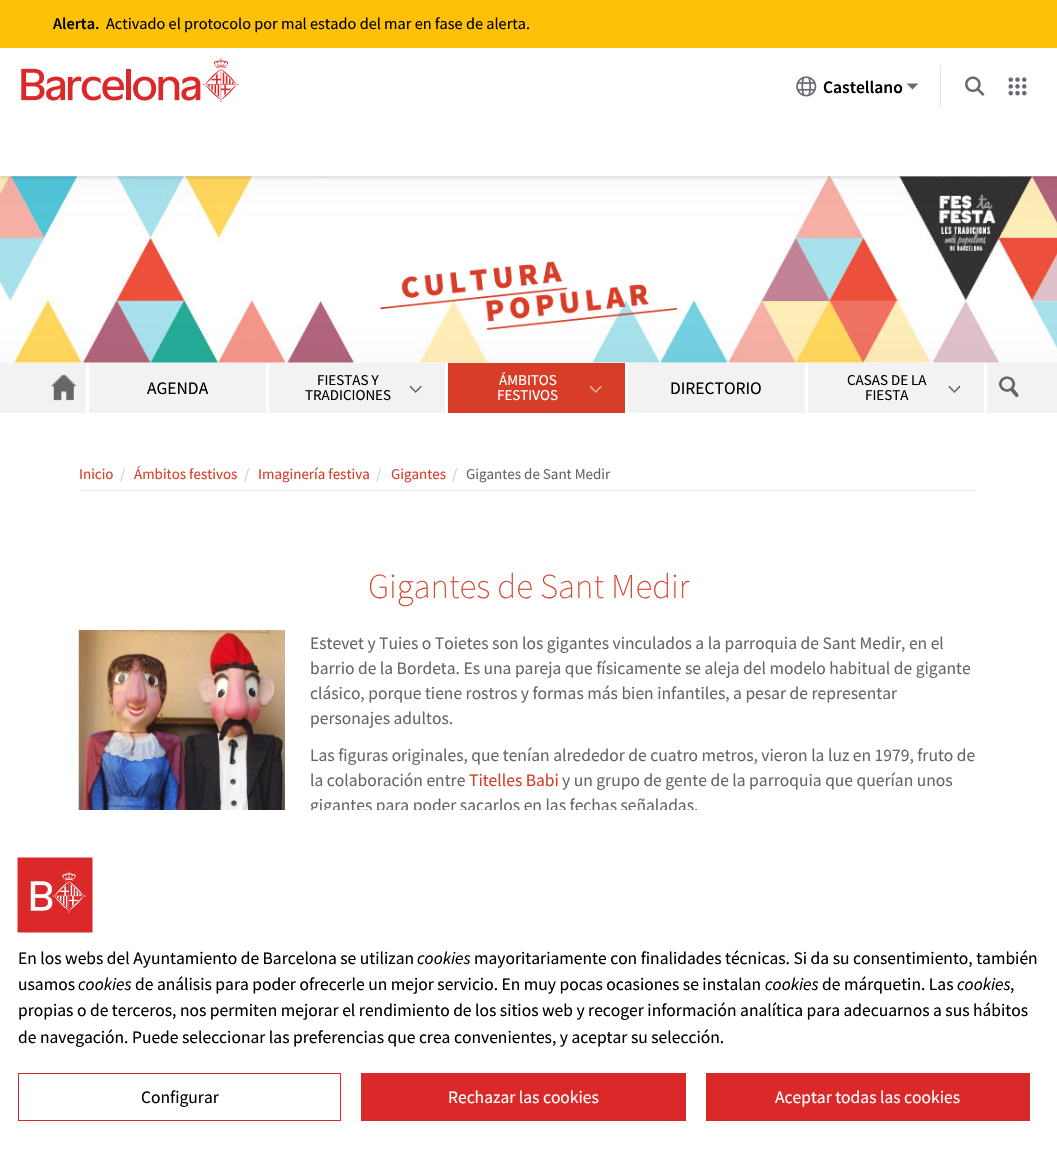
void draw(SkCanvas* canvas) {
	SkPaint paint;
	paint.setAntiAlias(true);
	auto svgPath = [&](const char* data, bool evenOdd = false) {
		SkPath result = *SkParsePath::FromSVGString(data);
		if (evenOdd) result.setFillType(SkPathFillType::kEvenOdd);
		return result;
	};
	canvas->clear(0xffffffff);
	paint.setColor(0xffffc107);
	canvas->drawRect(SkRect::MakeXYWH(0, 0, 1057, 48), paint);
	SkFont f1(fontMgr->matchFamilyStyle("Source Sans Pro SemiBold", SkFontStyle(600, SkFontStyle::kNormal_Width, SkFontStyle::kUpright_Slant)), 16.25);
	f1.setSubpixel(true);
	paint.setColor(0xff000000);
	canvas->drawString("Alerta.", 53, 29, f1, paint);
	SkFont f2(fontMgr->matchFamilyStyle("Source Sans Pro", SkFontStyle::Normal()), 16.25);
	f2.setSubpixel(true);
	canvas->drawString("Activado el protocolo por mal estado del mar en fase de alerta.", 106, 29, f2, paint);
	canvas->drawImageRect(SkImages::DeferredFromEncodedData(SkData::MakeFromFileName("img1.png")), SkRect::MakeXYWH(21, 58, 218, 44), SkSamplingOptions());
	paint.setColor(0xffe5e5e5);
	canvas->drawRect(SkRect::MakeXYWH(940, 65, 1, 43), paint);
	canvas->drawImageRect(SkImages::DeferredFromEncodedData(SkData::MakeFromFileName("img2.png")), SkRect::MakeXYWH(796, 76, 21, 21), SkSamplingOptions());
	SkFont f3(fontMgr->matchFamilyStyle("Source Sans Pro SemiBold", SkFontStyle(600, SkFontStyle::kNormal_Width, SkFontStyle::kUpright_Slant)), 17.5);
	f3.setSubpixel(true);
	paint.setColor(0xff000000);
	canvas->drawString("Castellano", 823, 93, f3, paint);
	paint.setColor(0xff696973);
	canvas->drawPath(svgPath("M906.5 83.5L912.5 89.5L918.5 83.5Z"), paint);
	canvas->drawImageRect(SkImages::DeferredFromEncodedData(SkData::MakeFromFileName("img3.png")), SkRect::MakeXYWH(965, 76, 20, 20), SkSamplingOptions());
	canvas->drawImageRect(SkImages::DeferredFromEncodedData(SkData::MakeFromFileName("img4.png")), SkRect::MakeXYWH(1008, 77, 19, 19), SkSamplingOptions());
	canvas->drawImageRect(SkImages::DeferredFromEncodedData(SkData::MakeFromFileName("img5.png")), SkRect::MakeXYWH(0, 176, 1057, 187), SkSamplingOptions());
	canvas->drawImageRect(SkImages::DeferredFromEncodedData(SkData::MakeFromFileName("img6.png")), SkRect::MakeXYWH(380, 261, 298, 69), SkSamplingOptions());
	paint.setColor(0xfff2f2f2);
	canvas->drawRect(SkRect::MakeXYWH(0, 363, 1057, 50), paint);
	canvas->drawImageRect(SkImages::DeferredFromEncodedData(SkData::MakeFromFileName("img7.png")), SkRect::MakeXYWH(51, 374, 26, 27), SkSamplingOptions());
	paint.setColor(0xffffffff);
	canvas->drawRect(SkRect::MakeXYWH(86, 363, 3, 50), paint);
	canvas->drawRect(SkRect::MakeXYWH(266, 363, 3, 50), paint);
	SkFont f4(fontMgr->matchFamilyStyle("Source Sans Pro", SkFontStyle::Normal()), 17.5);
	f4.setSubpixel(true);
	paint.setColor(0xff000000);
	canvas->drawString("AGENDA", 147, 394, f4, paint);
	paint.setColor(0xffffffff);
	canvas->drawRect(SkRect::MakeXYWH(445, 363, 3, 50), paint);
	SkFont f5(fontMgr->matchFamilyStyle("Source Sans Pro", SkFontStyle::Normal()), 15);
	f5.setSubpixel(true);
	paint.setColor(0xff000000);
	canvas->drawString("FIESTAS Y", 317, 385, f5, paint);
	canvas->drawString("TRADICIONES", 305, 400, f5, paint);
	canvas->drawImageRect(SkImages::DeferredFromEncodedData(SkData::MakeFromFileName("img8.png")), SkRect::MakeXYWH(410, 386, 12, 7), SkSamplingOptions());
	paint.setColor(0xffd83d27);
	canvas->drawRect(SkRect::MakeXYWH(448, 363, 177, 50), paint);
	paint.setColor(0xffffffff);
	canvas->drawRect(SkRect::MakeXYWH(625, 363, 3, 50), paint);
	canvas->drawString("ÁMBITOS", 499, 385, f5, paint);
	canvas->drawString("FESTIVOS", 497, 400, f5, paint);
	canvas->drawImageRect(SkImages::DeferredFromEncodedData(SkData::MakeFromFileName("img9.png")), SkRect::MakeXYWH(590, 386, 12, 7), SkSamplingOptions());
	canvas->drawRect(SkRect::MakeXYWH(805, 363, 3, 50), paint);
	paint.setColor(0xff000000);
	canvas->drawString("DIRECTORIO", 670, 394, f4, paint);
	paint.setColor(0xffffffff);
	canvas->drawRect(SkRect::MakeXYWH(984, 363, 3, 50), paint);
	paint.setColor(0xff000000);
	canvas->drawString("CASAS DE LA", 847, 385, f5, paint);
	canvas->drawString("FIESTA", 865, 400, f5, paint);
	canvas->drawImageRect(SkImages::DeferredFromEncodedData(SkData::MakeFromFileName("img10.png")), SkRect::MakeXYWH(948, 386, 12, 7), SkSamplingOptions());
	canvas->drawImageRect(SkImages::DeferredFromEncodedData(SkData::MakeFromFileName("img11.png")), SkRect::MakeXYWH(998, 376, 21, 22), SkSamplingOptions());
	paint.setColor(0xffeaeaea);
	canvas->drawRect(SkRect::MakeXYWH(81, 490, 895, 1), paint);
	paint.setColor(0xffd83d27);
	canvas->drawString("Inicio", 79, 479, f5, paint);
	paint.setColor(0xffcccccc);
	canvas->drawString("/", 120, 479, f5, paint);
	paint.setColor(0xffd83d27);
	canvas->drawString("Ámbitos festivos", 134, 479, f5, paint);
	paint.setColor(0xffcccccc);
	canvas->drawString("/", 244, 479, f5, paint);
	paint.setColor(0xffd83d27);
	canvas->drawString("Imaginería festiva", 258, 479, f5, paint);
	paint.setColor(0xffcccccc);
	canvas->drawString("/", 376, 479, f5, paint);
	paint.setColor(0xffd83d27);
	canvas->drawString("Gigantes", 391, 479, f5, paint);
	paint.setColor(0xffcccccc);
	canvas->drawString("/", 452, 479, f5, paint);
	paint.setColor(0xff666666);
	canvas->drawString("Gigantes de Sant Medir", 466, 479, f5, paint);
	SkFont f6(fontMgr->matchFamilyStyle("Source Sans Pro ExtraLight", SkFontStyle(200, SkFontStyle::kNormal_Width, SkFontStyle::kUpright_Slant)), 35);
	f6.setSubpixel(true);
	paint.setColor(0xffd83d27);
	canvas->drawString("Gigantes de Sant Medir", 368, 598, f6, paint);
	canvas->drawImageRect(SkImages::DeferredFromEncodedData(SkData::MakeFromFileName("img12.png")), SkRect::MakeXYWH(78, 630, 207, 180), SkSamplingOptions());
	paint.setColor(0xff666666);
	canvas->drawString("Estevet y Tuies o Toietes son los gigantes vinculados a la parroquia de Sant Medir, en el", 310, 649, f4, paint);
	canvas->drawString("barrio de la Bordeta. Es una pareja que físicamente se aleja del modelo habitual de gigante", 310, 674, f4, paint);
	canvas->drawString("clásico, porque tiene rostros y formas más bien infantiles, a pesar de representar", 310, 699, f4, paint);
	canvas->drawString("personajes adultos.", 310, 724, f4, paint);
	canvas->drawString("Las figuras originales, que tenían alrededor de cuatro metros, vieron la luz en 1979, fruto de", 310, 761, f4, paint);
	canvas->drawString("la colaboración entre", 310, 786, f4, paint);
	paint.setColor(0xffd83d27);
	canvas->drawString("Titelles Babi", 469, 786, f4, paint);
	paint.setColor(0xff666666);
	canvas->drawString("y un grupo de gente de la parroquia que querían unos", 562, 786, f4, paint);
	canvas->drawString("gigantes para poder sacarlos en las fechas señaladas.", 310, 811, f4, paint);
	paint.setColor(0xffffffff);
	canvas->drawRect(SkRect::MakeXYWH(310, 810, 388, 5), paint);
	canvas->drawImageRect(SkImages::DeferredFromEncodedData(SkData::MakeFromFileName("img13.png")), SkRect::MakeXYWH(17, 857, 76, 76), SkSamplingOptions());
	paint.setColor(0xff000000);
	canvas->drawString("En los webs del Ayuntamiento de Barcelona se utilizan", 18, 964, f4, paint);
	SkFont f7(fontMgr->matchFamilyStyle("Source Sans Pro", SkFontStyle::Italic()), 17.5);
	f7.setSubpixel(true);
	canvas->drawString("cookies", 417, 964, f7, paint);
	canvas->drawString("mayoritariamente con finalidades técnicas. Si da su consentimiento, también", 474, 964, f4, paint);
	canvas->drawString("usamos", 18, 990, f4, paint);
	canvas->drawString("cookies", 78, 990, f7, paint);
	canvas->drawString("de análisis para poder ofrecerle un mejor servicio. En muy pocas ocasiones se instalan", 135, 990, f4, paint);
	canvas->drawString("cookies", 765, 990, f7, paint);
	canvas->drawString("de márquetin. Las", 822, 990, f4, paint);
	canvas->drawString("cookies", 957, 990, f7, paint);
	canvas->drawString(",", 1010, 990, f4, paint);
	canvas->drawString("propias o de terceros, nos permiten mejorar el rendimiento de los sitios web y recoger información analítica para adecuarnos a sus hábitos", 18, 1016, f4, paint);
	canvas->drawString("de navegación. Puede seleccionar las preferencias que crea convenientes, y aceptar su selección.", 18, 1043, f4, paint);
	paint.setStroke(true);
	paint.setStrokeWidth(1);
	paint.setColor(0xffdb2828);
	canvas->drawRect(SkRect::MakeXYWH(18.5, 1073.5, 322, 47), paint);
	paint.setStroke(false);
	paint.setColor(0xff000000);
	canvas->drawString("Configurar", 141, 1103, f4, paint);
	paint.setColor(0xffdb2828);
	canvas->drawRect(SkRect::MakeXYWH(361, 1073, 325, 48), paint);
	paint.setColor(0xffffffff);
	canvas->drawString("Rechazar las cookies", 448, 1103, f4, paint);
	paint.setColor(0xffdb2828);
	canvas->drawRect(SkRect::MakeXYWH(706, 1073, 324, 48), paint);
	paint.setColor(0xffffffff);
	canvas->drawString("Aceptar todas las cookies", 775, 1103, f4, paint);
}
